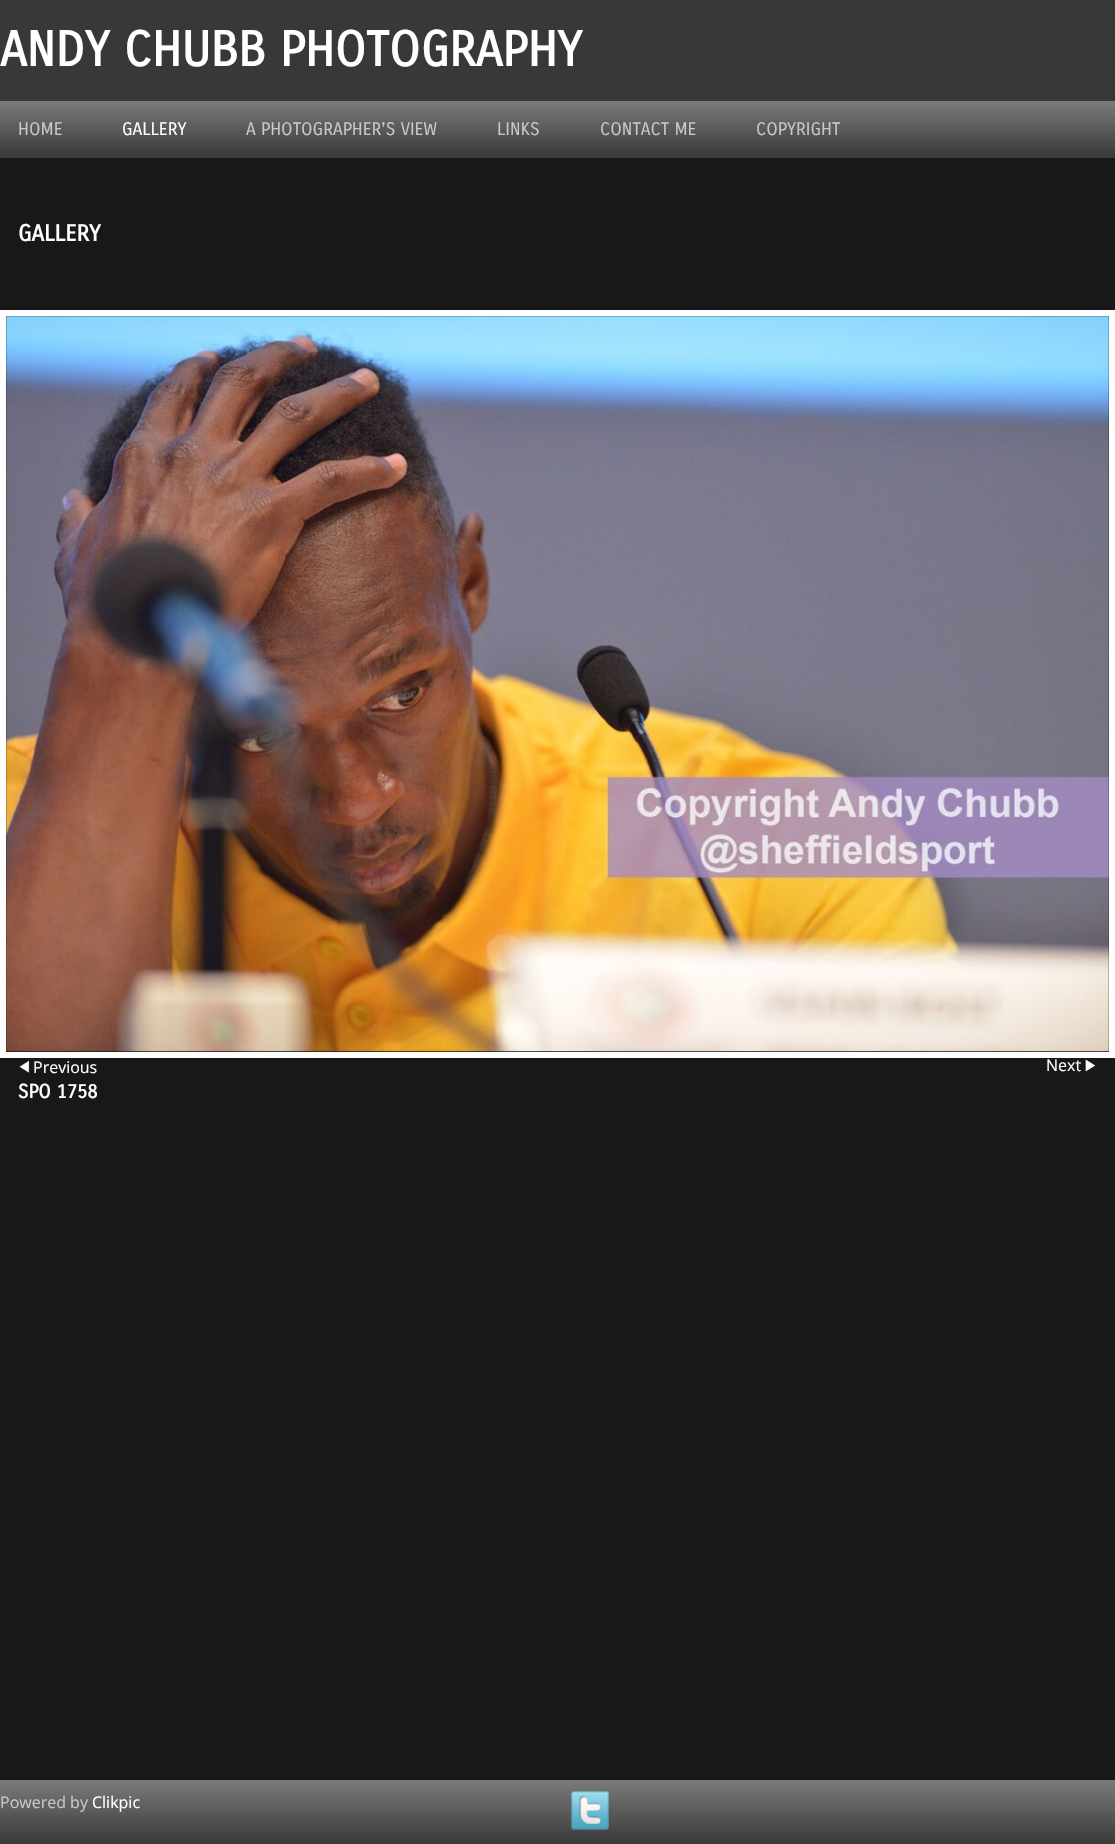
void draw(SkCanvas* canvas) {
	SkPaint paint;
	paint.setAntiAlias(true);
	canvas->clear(0xff181818);
	paint.setColor(0xff393838);
	canvas->drawRect(SkRect::MakeXYWH(0, 0, 1115, 101), paint);
	SkFont f1(fontMgr->matchFamilyStyle("Carrois Gothic", SkFontStyle::Bold()), 48);
	f1.setSubpixel(true);
	paint.setColor(0xffffffff);
	canvas->drawString("ANDY CHUBB PHOTOGRAPHY", 0, 66, f1, paint);
	{
		const SkColor colors[] = {0xff7b7b7b, 0xff393838};
		const float stops[] = {0, 1};
		const SkPoint ends[] = {{558, 101}, {558, 158}};
		paint.setShader(SkGradientShader::MakeLinear(ends, colors, stops, 2, SkTileMode::kClamp));
		paint.setAlpha(255);
	}
	canvas->drawRect(SkRect::MakeXYWH(0, 101, 1115, 57), paint);
	SkFont f2(fontMgr->matchFamilyStyle("Carrois Gothic", SkFontStyle::Normal()), 17.6);
	f2.setSubpixel(true);
	paint.setShader(nullptr);
	paint.setColor(0xffc8c8c8);
	canvas->drawString("HOME", 18, 135, f2, paint);
	paint.setColor(0xffffffff);
	canvas->drawString("GALLERY", 122, 135, f2, paint);
	paint.setColor(0xffc8c8c8);
	canvas->drawString("A PHOTOGRAPHER'S VIEW", 246, 135, f2, paint);
	canvas->drawString("LINKS", 497, 135, f2, paint);
	canvas->drawString("CONTACT ME", 600, 135, f2, paint);
	canvas->drawString("COPYRIGHT", 756, 135, f2, paint);
	SkFont f3(fontMgr->matchFamilyStyle("Carrois Gothic", SkFontStyle::Bold()), 22.5);
	f3.setSubpixel(true);
	paint.setColor(0xffffffff);
	canvas->drawString("GALLERY", 18, 241, f3, paint);
	paint.setStroke(true);
	paint.setStrokeWidth(6);
	canvas->drawRect(SkRect::MakeXYWH(3, 313, 1109, 742), paint);
	canvas->drawImageRect(SkImages::DeferredFromEncodedData(SkData::MakeFromFileName("img1.png")), SkRect::MakeXYWH(6, 316, 1103, 736), SkSamplingOptions());
	canvas->drawImageRect(SkImages::DeferredFromEncodedData(SkData::MakeFromFileName("img2.png")), SkRect::MakeXYWH(19, 1060, 11, 13), SkSamplingOptions());
	SkFont f4(fontMgr->matchFamilyStyle("Open Sans", SkFontStyle::Normal()), 16);
	f4.setSubpixel(true);
	paint.setStroke(false);
	canvas->drawString("Previous", 33, 1073, f4, paint);
	canvas->drawString("Next", 1046, 1071, f4, paint);
	canvas->drawImageRect(SkImages::DeferredFromEncodedData(SkData::MakeFromFileName("img3.png")), SkRect::MakeXYWH(1085, 1059, 11, 13), SkSamplingOptions());
	SkFont f5(fontMgr->matchFamilyStyle("Carrois Gothic", SkFontStyle::Bold()), 19);
	f5.setSubpixel(true);
	canvas->drawString("SPO 1758", 18, 1098, f5, paint);
	{
		const SkColor colors[] = {0xff7b7b7b, 0xff393838};
		const float stops[] = {0, 1};
		const SkPoint ends[] = {{558, 1780}, {558, 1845}};
		paint.setShader(SkGradientShader::MakeLinear(ends, colors, stops, 2, SkTileMode::kClamp));
		paint.setAlpha(255);
	}
	canvas->drawRect(SkRect::MakeXYWH(0, 1780, 1115, 64), paint);
	paint.setShader(nullptr);
	paint.setColor(0xffc8c8c8);
	canvas->drawString("Powered by", 0, 1808, f4, paint);
	paint.setColor(0xffffffff);
	canvas->drawString("Clikpic", 92, 1808, f4, paint);
	canvas->drawImageRect(SkImages::DeferredFromEncodedData(SkData::MakeFromFileName("img4.png")), SkRect::MakeXYWH(571, 1791, 38, 39), SkSamplingOptions());
}
